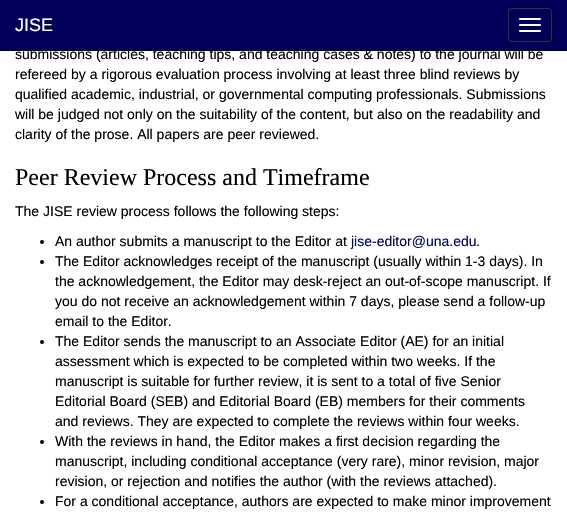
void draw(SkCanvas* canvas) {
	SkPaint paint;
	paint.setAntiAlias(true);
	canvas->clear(0xffffffff);
	SkFont f1(fontMgr->matchFamilyStyle("Liberation Sans", SkFontStyle::Normal()), 14);
	f1.setSubpixel(true);
	paint.setColor(0xff000000);
	canvas->drawString("submissions (articles, teaching tips, and teaching cases & notes) to the journal will be", 15, 59, f1, paint);
	paint.setColor(0xff000059);
	canvas->drawRect(SkRect::MakeXYWH(0, 0, 567, 50), paint);
	paint.setColor(0xff080808);
	canvas->drawRect(SkRect::MakeXYWH(0, 50, 567, 1), paint);
	SkFont f2(fontMgr->matchFamilyStyle("Liberation Sans", SkFontStyle::Normal()), 18);
	f2.setSubpixel(true);
	paint.setColor(0xffffffff);
	canvas->drawString("JISE", 15, 31, f2, paint);
	paint.setStroke(true);
	paint.setStrokeWidth(1);
	paint.setColor(0xff333333);
	canvas->drawRoundRect(SkRect::MakeXYWH(508.5, 8.5, 43, 33), 3.5, 3.5, paint);
	paint.setStroke(false);
	paint.setColor(0xffffffff);
	canvas->drawRoundRect(SkRect::MakeXYWH(519, 18, 22, 2), 1, 1, paint);
	canvas->drawRoundRect(SkRect::MakeXYWH(519, 24, 22, 2), 1, 1, paint);
	canvas->drawRoundRect(SkRect::MakeXYWH(519, 30, 22, 2), 1, 1, paint);
	paint.setColor(0xff000000);
	canvas->drawString("refereed by a rigorous evaluation process involving at least three blind reviews by", 15, 79, f1, paint);
	canvas->drawString("qualified academic, industrial, or governmental computing professionals. Submissions", 15, 99, f1, paint);
	canvas->drawString("will be judged not only on the suitability of the content, but also on the readability and", 15, 119, f1, paint);
	canvas->drawString("clarity of the prose. All papers are peer reviewed.", 15, 139, f1, paint);
	SkFont f3(fontMgr->matchFamilyStyle("Liberation Serif", SkFontStyle::Normal()), 24);
	f3.setSubpixel(true);
	canvas->drawString("Peer Review Process and Timeframe", 15, 185, f3, paint);
	canvas->drawString("The JISE review process follows the following steps:", 15, 216, f1, paint);
	canvas->drawCircle(42, 242, 2, paint);
	canvas->drawString("An author submits a manuscript to the Editor at", 55, 246, f1, paint);
	paint.setColor(0xff000059);
	canvas->drawString("jise-editor@una.edu", 351, 246, f1, paint);
	paint.setColor(0xff000000);
	canvas->drawString(".", 476, 246, f1, paint);
	canvas->drawCircle(42, 262, 2, paint);
	canvas->drawString("The Editor acknowledges receipt of the manuscript (usually within 1-3 days). In", 55, 266, f1, paint);
	canvas->drawString("the acknowledgement, the Editor may desk-reject an out-of-scope manuscript. If", 55, 286, f1, paint);
	canvas->drawString("you do not receive an acknowledgement within 7 days, please send a follow-up", 55, 306, f1, paint);
	canvas->drawString("email to the Editor.", 55, 326, f1, paint);
	canvas->drawCircle(42, 342, 2, paint);
	canvas->drawString("The Editor sends the manuscript to an Associate Editor (AE) for an initial", 55, 346, f1, paint);
	canvas->drawString("assessment which is expected to be completed within two weeks. If the", 55, 366, f1, paint);
	canvas->drawString("manuscript is suitable for further review, it is sent to a total of five Senior", 55, 386, f1, paint);
	canvas->drawString("Editorial Board (SEB) and Editorial Board (EB) members for their comments", 55, 406, f1, paint);
	canvas->drawString("and reviews. They are expected to complete the reviews within four weeks.", 55, 426, f1, paint);
	canvas->drawCircle(42, 442, 2, paint);
	canvas->drawString("With the reviews in hand, the Editor makes a first decision regarding the", 55, 446, f1, paint);
	canvas->drawString("manuscript, including conditional acceptance (very rare), minor revision, major", 55, 466, f1, paint);
	canvas->drawString("revision, or rejection and notifies the author (with the reviews attached).", 55, 486, f1, paint);
	canvas->drawCircle(42, 502, 2, paint);
	canvas->drawString("For a conditional acceptance, authors are expected to make minor improvement", 55, 506, f1, paint);
}
